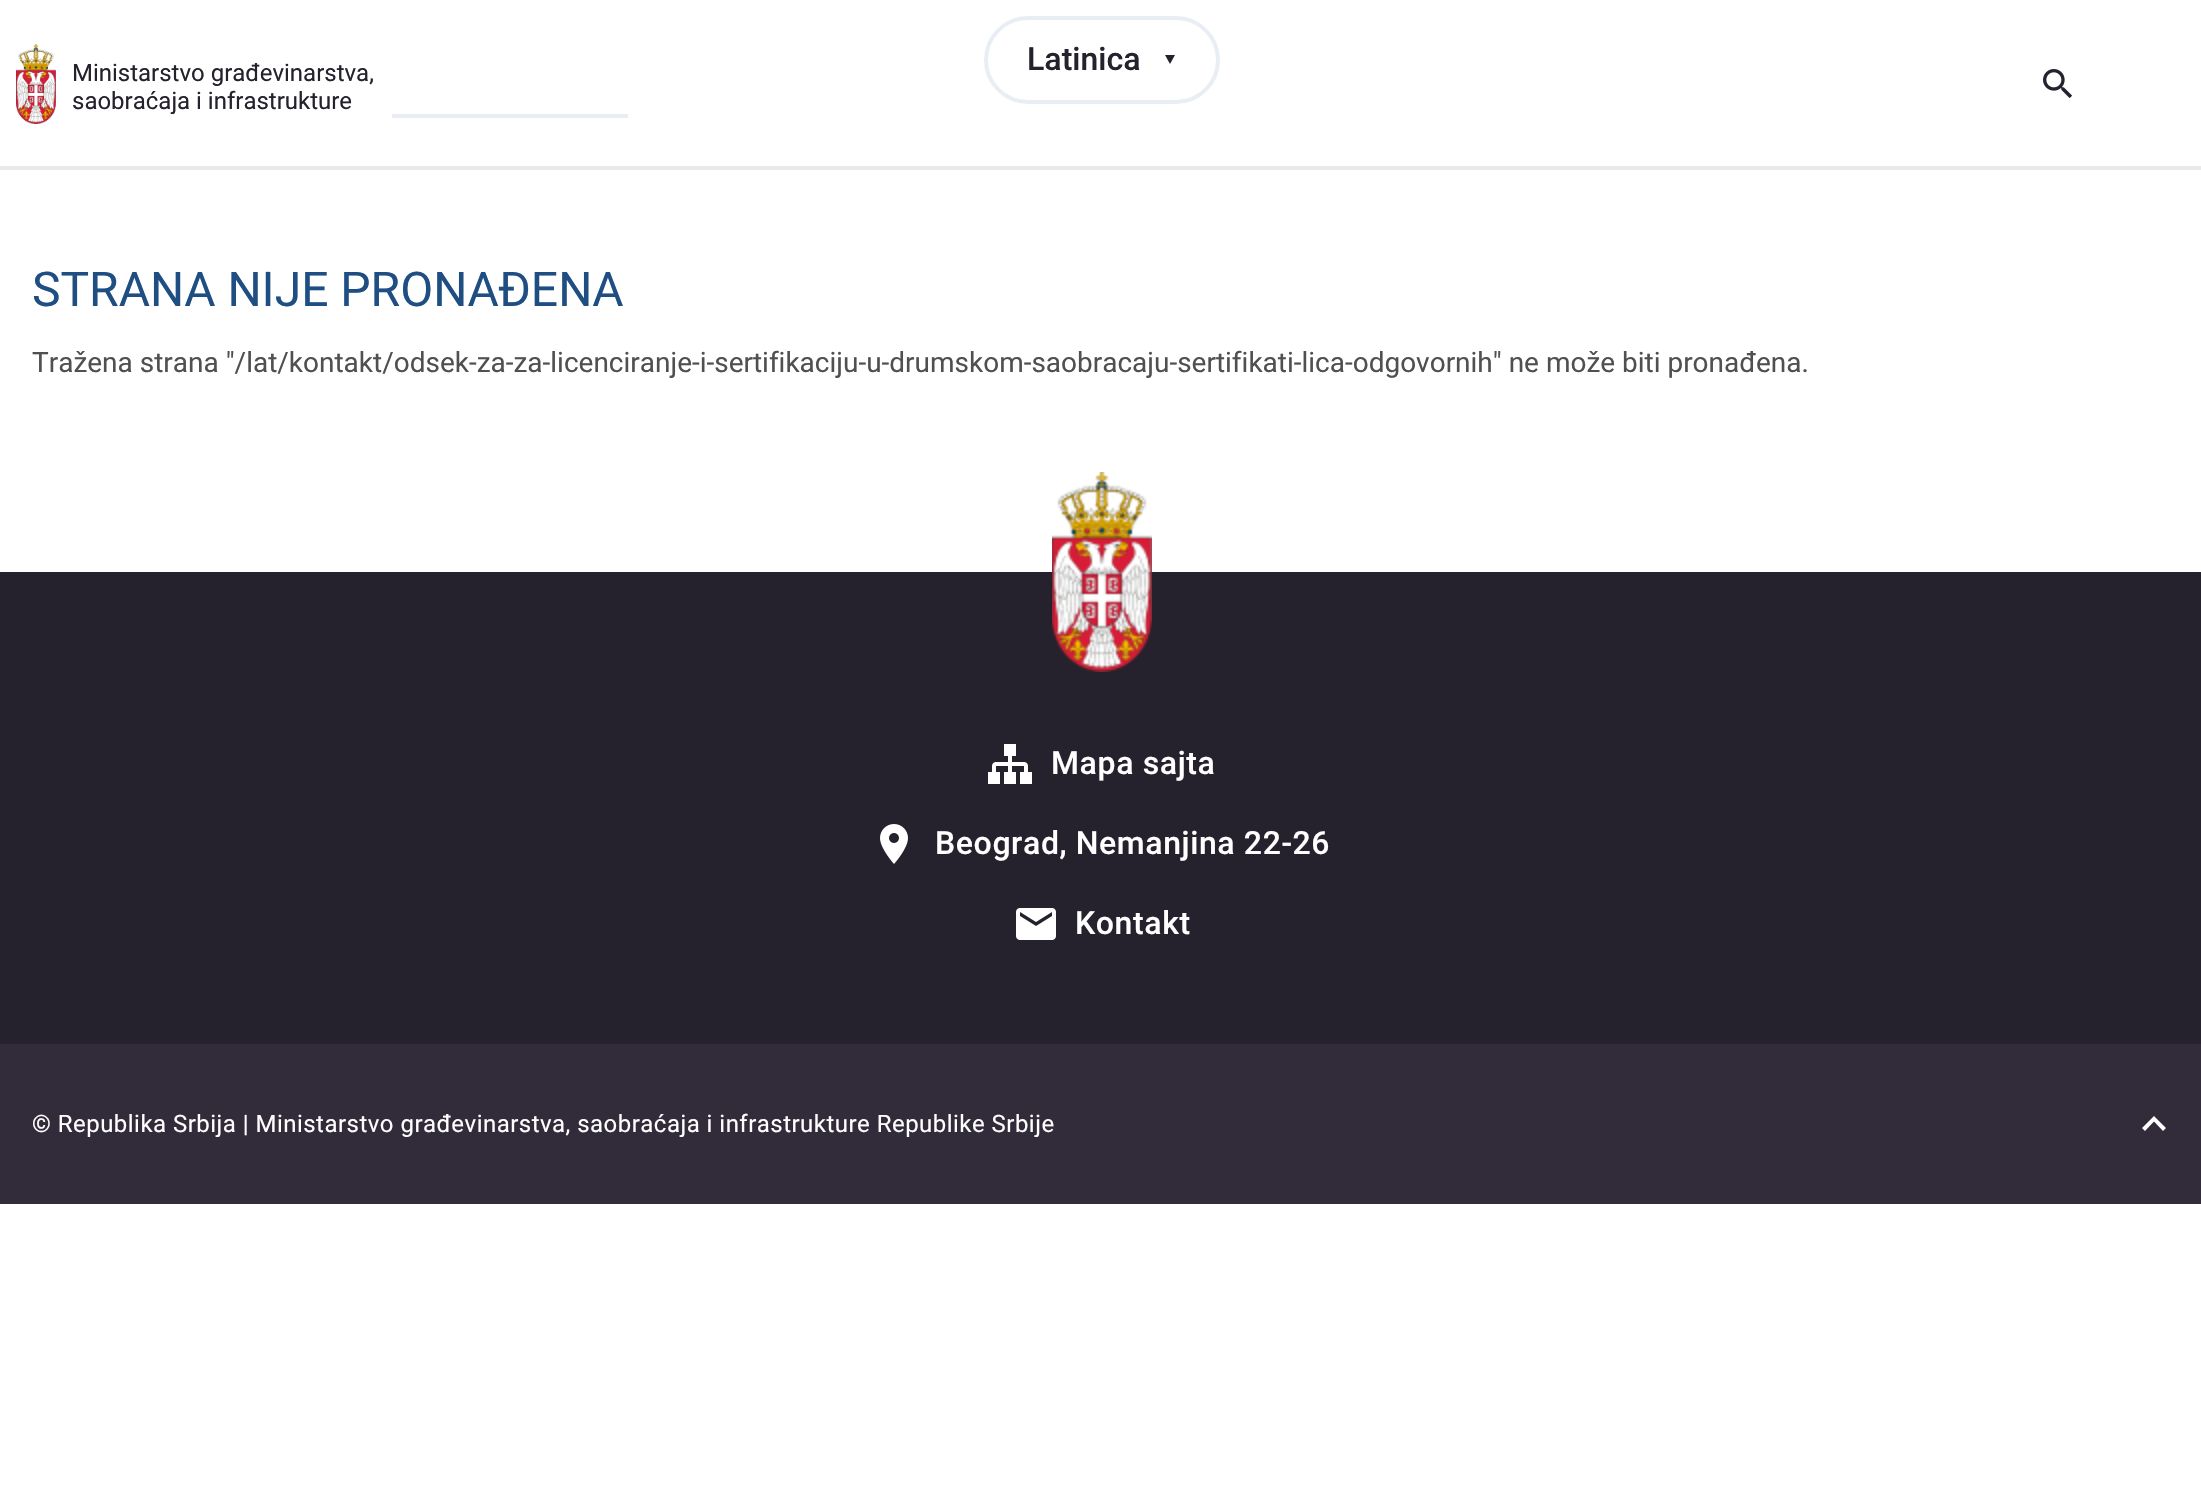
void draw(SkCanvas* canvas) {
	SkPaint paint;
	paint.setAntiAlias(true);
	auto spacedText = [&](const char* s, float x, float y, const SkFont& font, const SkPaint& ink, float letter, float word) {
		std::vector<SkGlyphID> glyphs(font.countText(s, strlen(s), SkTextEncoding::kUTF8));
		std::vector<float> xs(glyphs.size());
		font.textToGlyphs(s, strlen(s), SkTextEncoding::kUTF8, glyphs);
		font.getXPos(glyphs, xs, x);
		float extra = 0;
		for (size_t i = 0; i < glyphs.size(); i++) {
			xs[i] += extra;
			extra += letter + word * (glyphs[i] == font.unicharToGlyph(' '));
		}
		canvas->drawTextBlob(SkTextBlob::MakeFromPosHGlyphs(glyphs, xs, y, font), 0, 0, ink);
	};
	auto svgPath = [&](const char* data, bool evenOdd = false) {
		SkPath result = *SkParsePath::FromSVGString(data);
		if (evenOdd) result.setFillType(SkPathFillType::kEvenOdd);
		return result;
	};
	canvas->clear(0xffffffff);
	paint.setColor(0xffe9e9ea);
	canvas->drawRect(SkRect::MakeXYWH(0, 166, 2201, 4), paint);
	paint.setColor(0xffe9eef5);
	canvas->drawRect(SkRect::MakeXYWH(392, 114, 236, 4), paint);
	paint.setStroke(true);
	paint.setStrokeWidth(4);
	canvas->drawRoundRect(SkRect::MakeXYWH(986, 18, 232, 84), 42, 42, paint);
	paint.setStroke(false);
	paint.setColor(0xff25212d);
	canvas->drawPath(svgPath("M1170 64L1165 55H1175Z"), paint);
	SkFont f1(fontMgr->matchFamilyStyle("Roboto", SkFontStyle(500, SkFontStyle::kNormal_Width, SkFontStyle::kUpright_Slant)), 32);
	f1.setSubpixel(true);
	canvas->drawString("Latinica", 1027, 70, f1, paint);
	canvas->drawImageRect(SkImages::DeferredFromEncodedData(SkData::MakeFromFileName("img1.png")), SkRect::MakeXYWH(16, 44, 40, 80), SkSamplingOptions());
	SkFont f2(fontMgr->matchFamilyStyle("Roboto", SkFontStyle::Normal()), 24);
	f2.setSubpixel(true);
	canvas->drawString("Ministarstvo građevinarstva,", 72, 81, f2, paint);
	canvas->drawString("saobraćaja i infrastrukture", 72, 109, f2, paint);
	canvas->drawImageRect(SkImages::DeferredFromEncodedData(SkData::MakeFromFileName("img2.png")), SkRect::MakeXYWH(2043, 69, 30, 30), SkSamplingOptions());
	SkFont f3(fontMgr->matchFamilyStyle("Roboto", SkFontStyle::Normal()), 48);
	f3.setSubpixel(true);
	paint.setColor(0xff1f4f82);
	canvas->drawString("STRANA NIJE PRONAĐENA", 32, 306, f3, paint);
	SkFont f4(fontMgr->matchFamilyStyle("Roboto", SkFontStyle::Normal()), 28);
	f4.setSubpixel(true);
	paint.setColor(0xff505050);
	canvas->drawString("Tražena strana \"/lat/kontakt/odsek-za-za-licenciranje-i-sertifikaciju-u-drumskom-saobracaju-sertifikati-lica-odgovornih\" ne može biti pronađena.", 32, 372, f4, paint);
	paint.setColor(0xff25212d);
	canvas->drawRect(SkRect::MakeXYWH(0, 572, 2201, 472), paint);
	canvas->drawImageRect(SkImages::DeferredFromEncodedData(SkData::MakeFromFileName("img3.png")), SkRect::MakeXYWH(1052, 472, 100, 200), SkSamplingOptions());
	canvas->drawImageRect(SkImages::DeferredFromEncodedData(SkData::MakeFromFileName("img4.png")), SkRect::MakeXYWH(988, 744, 44, 40), SkSamplingOptions());
	paint.setColor(0xffffffff);
	spacedText("Mapa sajta", 1051, 774, f1, paint, 0.6, 0);
	canvas->drawImageRect(SkImages::DeferredFromEncodedData(SkData::MakeFromFileName("img5.png")), SkRect::MakeXYWH(880, 824, 28, 40), SkSamplingOptions());
	spacedText("Beograd, Nemanjina 22-26", 935, 854, f1, paint, 0.6, 0);
	canvas->drawImageRect(SkImages::DeferredFromEncodedData(SkData::MakeFromFileName("img6.png")), SkRect::MakeXYWH(1016, 908, 40, 32), SkSamplingOptions());
	spacedText("Kontakt", 1075, 934, f1, paint, 0.6, 0);
	paint.setColor(0xff312b3a);
	canvas->drawRect(SkRect::MakeXYWH(0, 1044, 2201, 160), paint);
	paint.setColor(0xffffffff);
	spacedText("© Republika Srbija | Ministarstvo građevinarstva, saobraćaja i infrastrukture Republike Srbije", 32, 1132, f2, paint, 0.48, 0);
	canvas->drawPath(svgPath("M2145 1131L2154 1121.5L2163 1131L2166 1128L2154 1116L2142 1128Z"), paint);
}
